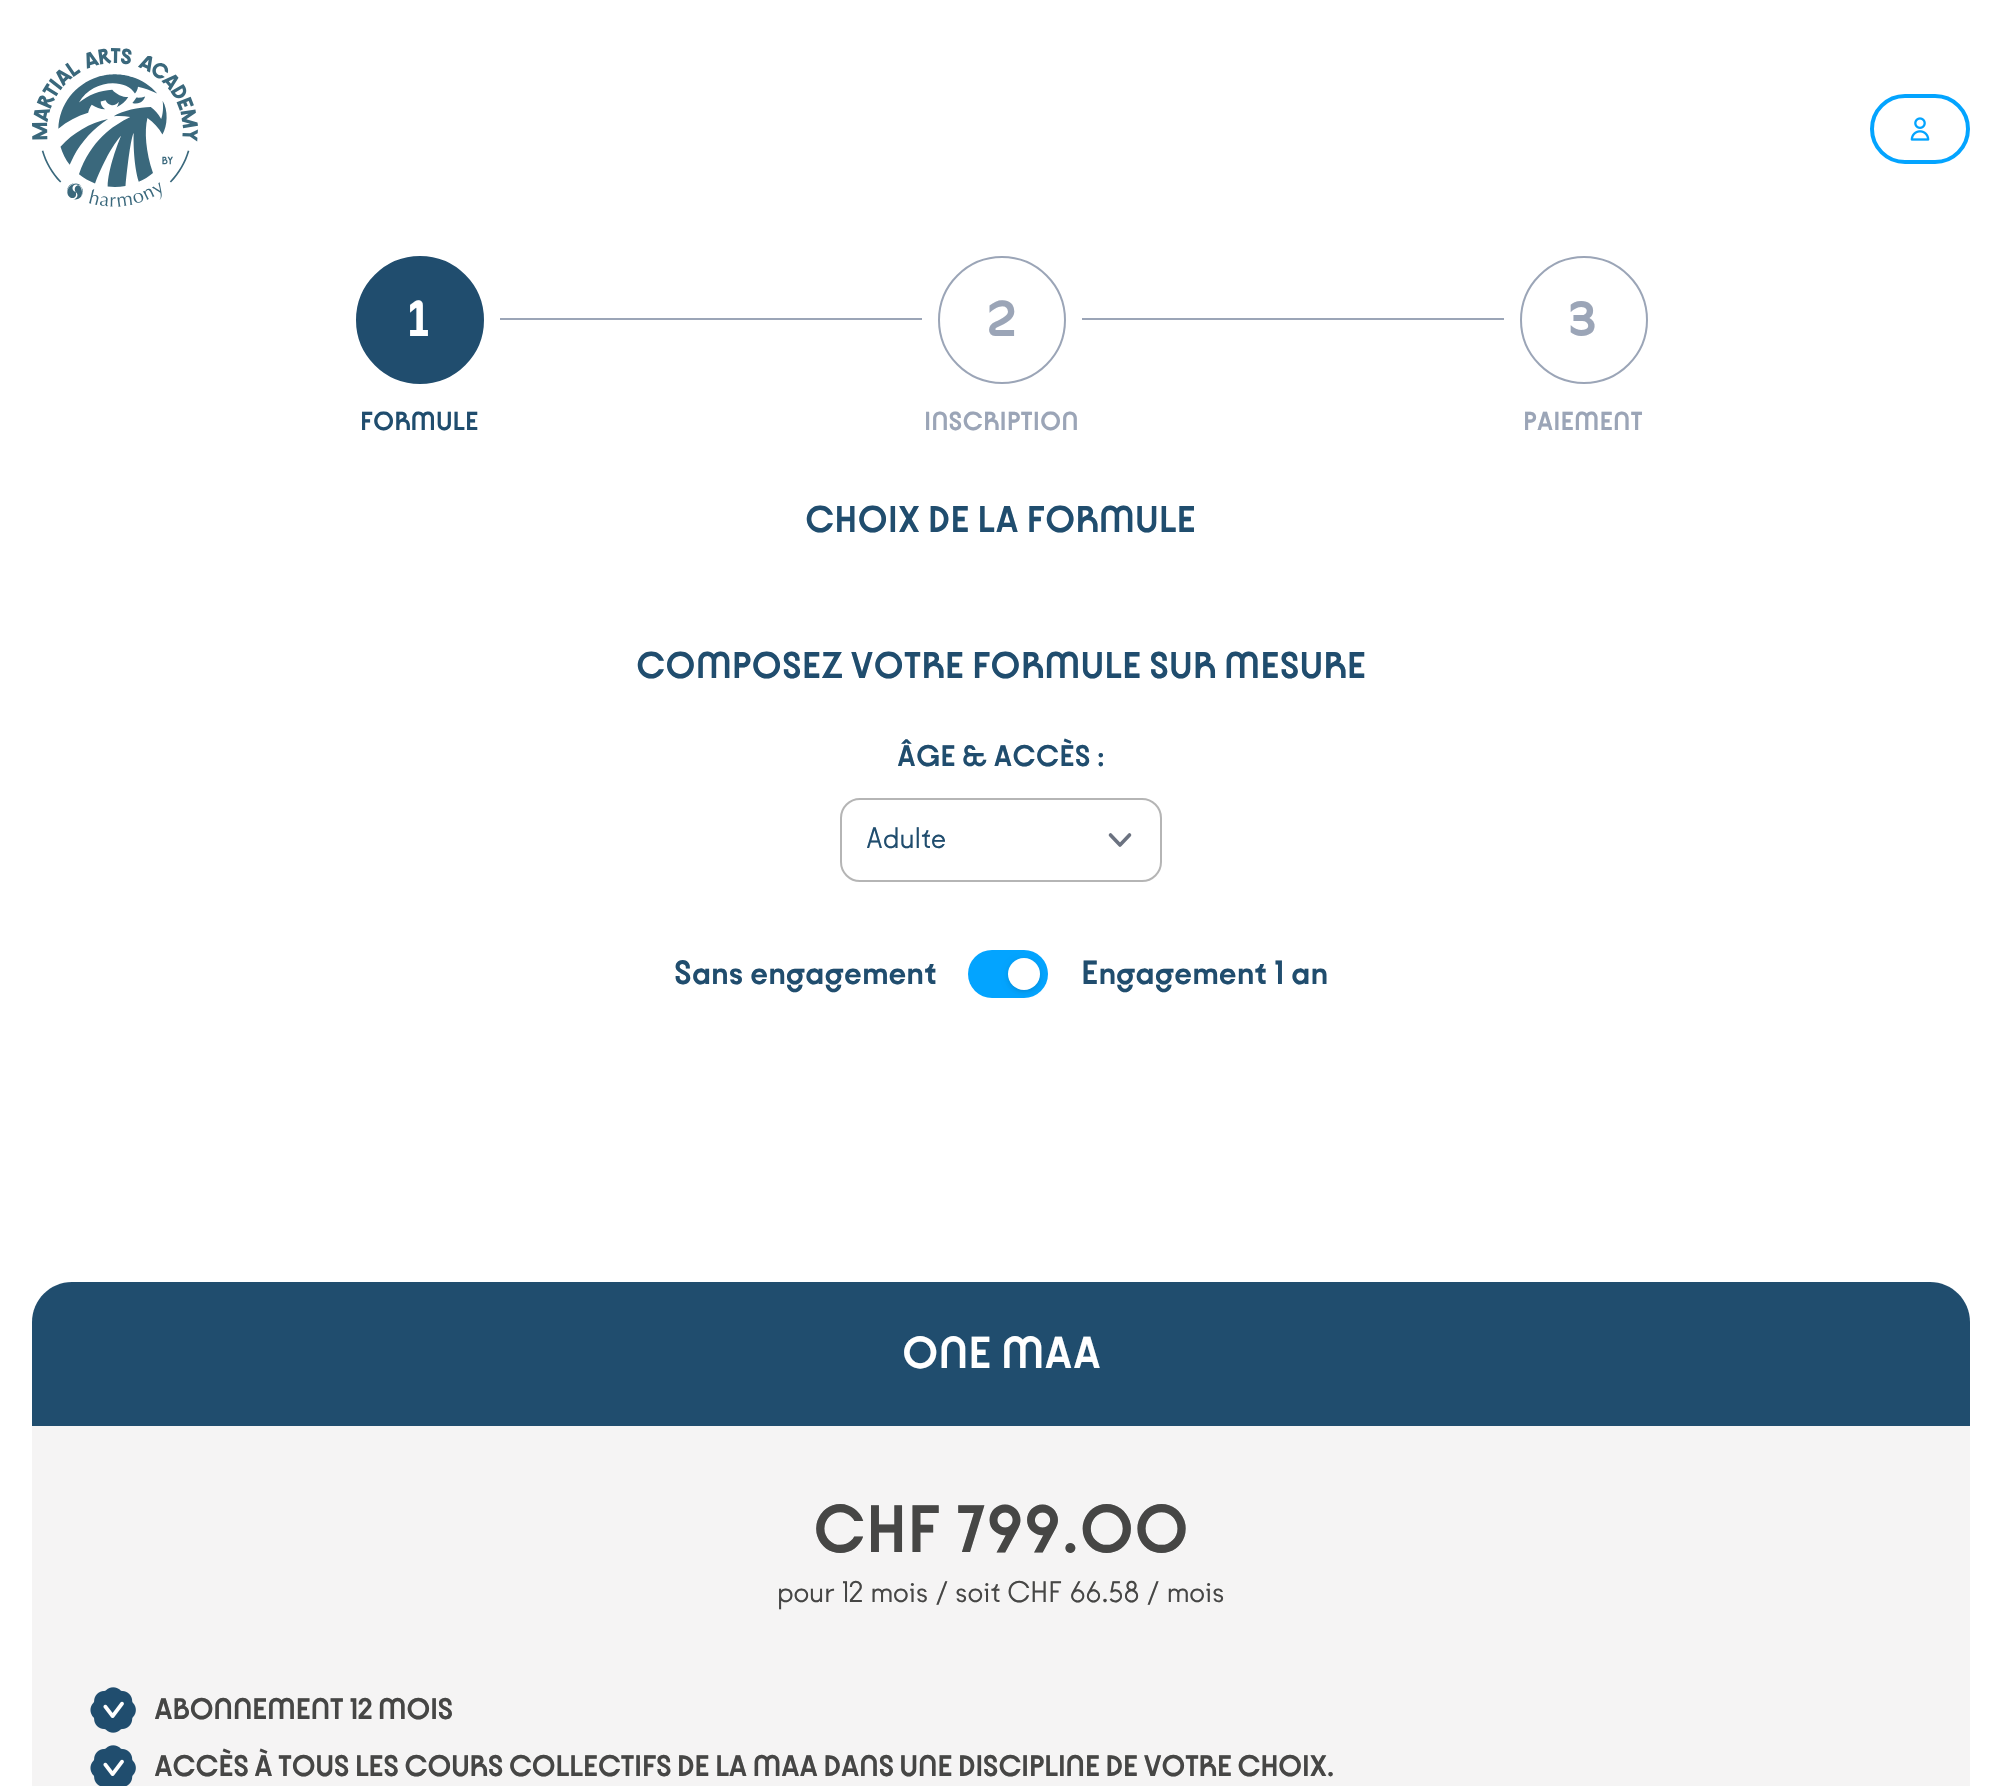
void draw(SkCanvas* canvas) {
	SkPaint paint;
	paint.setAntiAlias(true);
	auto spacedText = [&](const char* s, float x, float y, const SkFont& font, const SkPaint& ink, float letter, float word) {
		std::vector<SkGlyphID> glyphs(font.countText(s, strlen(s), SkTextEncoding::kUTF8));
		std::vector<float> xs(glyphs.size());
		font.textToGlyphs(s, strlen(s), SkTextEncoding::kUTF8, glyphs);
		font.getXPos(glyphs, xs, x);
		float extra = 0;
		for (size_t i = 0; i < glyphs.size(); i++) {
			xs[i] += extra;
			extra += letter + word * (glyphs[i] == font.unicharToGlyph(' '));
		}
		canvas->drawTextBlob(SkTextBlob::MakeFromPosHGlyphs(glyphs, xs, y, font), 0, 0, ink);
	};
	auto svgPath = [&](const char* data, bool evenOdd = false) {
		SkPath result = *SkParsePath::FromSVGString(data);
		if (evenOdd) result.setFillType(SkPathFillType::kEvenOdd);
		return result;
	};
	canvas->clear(0xffffffff);
	canvas->drawImageRect(SkImages::DeferredFromEncodedData(SkData::MakeFromFileName("img1.png")), SkRect::MakeXYWH(32, 48, 166, 159), SkSamplingOptions());
	paint.setStroke(true);
	paint.setStrokeWidth(4);
	paint.setColor(0xff03a4ff);
	canvas->drawRoundRect(SkRect::MakeXYWH(1872, 96, 96, 66), 33, 33, paint);
	canvas->drawImageRect(SkImages::DeferredFromEncodedData(SkData::MakeFromFileName("img2.png")), SkRect::MakeXYWH(1910, 117, 20, 24), SkSamplingOptions());
	paint.setStroke(false);
	paint.setColor(0xff204d6e);
	canvas->drawCircle(420, 320, 63, paint);
	paint.setStroke(true);
	paint.setStrokeWidth(2);
	canvas->drawCircle(420, 320, 63, paint);
	SkFont f1(fontMgr->matchFamilyStyle("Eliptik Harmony", SkFontStyle::Bold()), 50);
	f1.setSubpixel(true);
	paint.setStroke(false);
	paint.setColor(0xffffffff);
	canvas->drawString("1", 408, 336, f1, paint);
	SkFont f2(fontMgr->matchFamilyStyle("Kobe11", SkFontStyle::Bold()), 28);
	f2.setSubpixel(true);
	paint.setColor(0xff204d6e);
	canvas->drawString("FORMULE", 360, 430, f2, paint);
	paint.setColor(0xff9ba5b7);
	canvas->drawRect(SkRect::MakeXYWH(500, 318, 422, 2), paint);
	paint.setStroke(true);
	canvas->drawCircle(1002, 320, 63, paint);
	paint.setStroke(false);
	canvas->drawString("2", 987, 336, f1, paint);
	canvas->drawString("INSCRIPTION", 924, 430, f2, paint);
	canvas->drawRect(SkRect::MakeXYWH(1082, 318, 422, 2), paint);
	paint.setStroke(true);
	canvas->drawCircle(1584, 320, 63, paint);
	paint.setStroke(false);
	canvas->drawString("3", 1569, 336, f1, paint);
	canvas->drawString("PAIEMENT", 1523, 430, f2, paint);
	SkFont f3(fontMgr->matchFamilyStyle("Kobe11", SkFontStyle::Bold()), 40);
	f3.setSubpixel(true);
	paint.setColor(0xff204d6e);
	canvas->drawString("CHOIX DE LA FORMULE", 805, 532, f3, paint);
	canvas->drawString("COMPOSEZ VOTRE FORMULE SUR MESURE", 636, 678, f3, paint);
	SkFont f4(fontMgr->matchFamilyStyle("Kobe11", SkFontStyle::Bold()), 32);
	f4.setSubpixel(true);
	canvas->drawString("ÂGE & ACCÈS :", 897, 766, f4, paint);
	paint.setStroke(true);
	paint.setStrokeWidth(3.6);
	paint.setStrokeCap(SkPaint::kRound_Cap);
	paint.setStrokeJoin(SkPaint::kRound_Join);
	paint.setColor(0xff6b7280);
	canvas->drawPath(svgPath("M1110.5 835L1120 845L1129.5 835"), paint);
	paint.setStrokeWidth(2);
	paint.setStrokeCap(SkPaint::kButt_Cap);
	paint.setStrokeJoin(SkPaint::kMiter_Join);
	paint.setColor(0xffb5b5b5);
	canvas->drawRoundRect(SkRect::MakeXYWH(841, 799, 320, 82), 19, 19, paint);
	SkFont f5(fontMgr->matchFamilyStyle("Kobe11", SkFontStyle::Normal()), 32);
	f5.setSubpixel(true);
	paint.setStroke(false);
	paint.setColor(0xff204d6e);
	canvas->drawString("Adulte", 866, 848, f5, paint);
	SkFont f6(fontMgr->matchFamilyStyle("Kobe11", SkFontStyle::Bold()), 36);
	f6.setSubpixel(true);
	canvas->drawString("Sans engagement", 674, 984, f6, paint);
	paint.setColor(0xff03a4ff);
	canvas->drawRoundRect(SkRect::MakeXYWH(968, 950, 80, 48), 24, 24, paint);
	paint.setColor(0x1a000000);
	paint.setMaskFilter(SkMaskFilter::MakeBlur(kNormal_SkBlurStyle, 2));
	canvas->drawRoundRect(SkRect::MakeXYWH(1010, 962, 28, 28), 14, 14, paint);
	paint.setMaskFilter(nullptr);
	paint.setMaskFilter(SkMaskFilter::MakeBlur(kNormal_SkBlurStyle, 3));
	canvas->drawRoundRect(SkRect::MakeXYWH(1008, 960, 32, 32), 16, 16, paint);
	paint.setMaskFilter(nullptr);
	paint.setColor(0xffffffff);
	canvas->drawCircle(1024, 974, 16, paint);
	paint.setColor(0xff204d6e);
	canvas->drawString("Engagement 1 an", 1081, 984, f6, paint);
	canvas->drawPath(svgPath("M72 1282H1930C1952 1282 1970 1300 1970 1322V1426H32V1322C32 1300 50 1282 72 1282Z"), paint);
	SkFont f7(fontMgr->matchFamilyStyle("Kobe11", SkFontStyle::Bold()), 48);
	f7.setSubpixel(true);
	paint.setColor(0xffffffff);
	canvas->drawString("ONE MAA", 902, 1368, f7, paint);
	paint.setColor(0xfff5f4f4);
	canvas->drawRect(SkRect::MakeXYWH(32, 1426, 1938, 360), paint);
	SkFont f8(fontMgr->matchFamilyStyle("Kobe11", SkFontStyle::Bold()), 72);
	f8.setSubpixel(true);
	paint.setColor(0xff464645);
	canvas->drawString("CHF", 813, 1552, f8, paint);
	canvas->drawString("799.00", 956, 1552, f8, paint);
	canvas->drawString("pour 12 mois / soit CHF", 777, 1602, f5, paint);
	canvas->drawString("66.58 / mois", 1070, 1602, f5, paint);
	canvas->drawImageRect(SkImages::DeferredFromEncodedData(SkData::MakeFromFileName("img3.png")), SkRect::MakeXYWH(90, 1687, 46, 46), SkSamplingOptions());
	spacedText("ABONNEMENT 12 MOIS", 154, 1719, f4, paint, -0.55, 0);
	canvas->drawImageRect(SkImages::DeferredFromEncodedData(SkData::MakeFromFileName("img4.png")), SkRect::MakeXYWH(90, 1745, 46, 41), SkSamplingOptions());
	spacedText("ACCÈS À TOUS LES COURS COLLECTIFS DE LA MAA DANS UNE DISCIPLINE DE VOTRE CHOIX.", 154, 1776, f4, paint, -0.55, 0);
}
